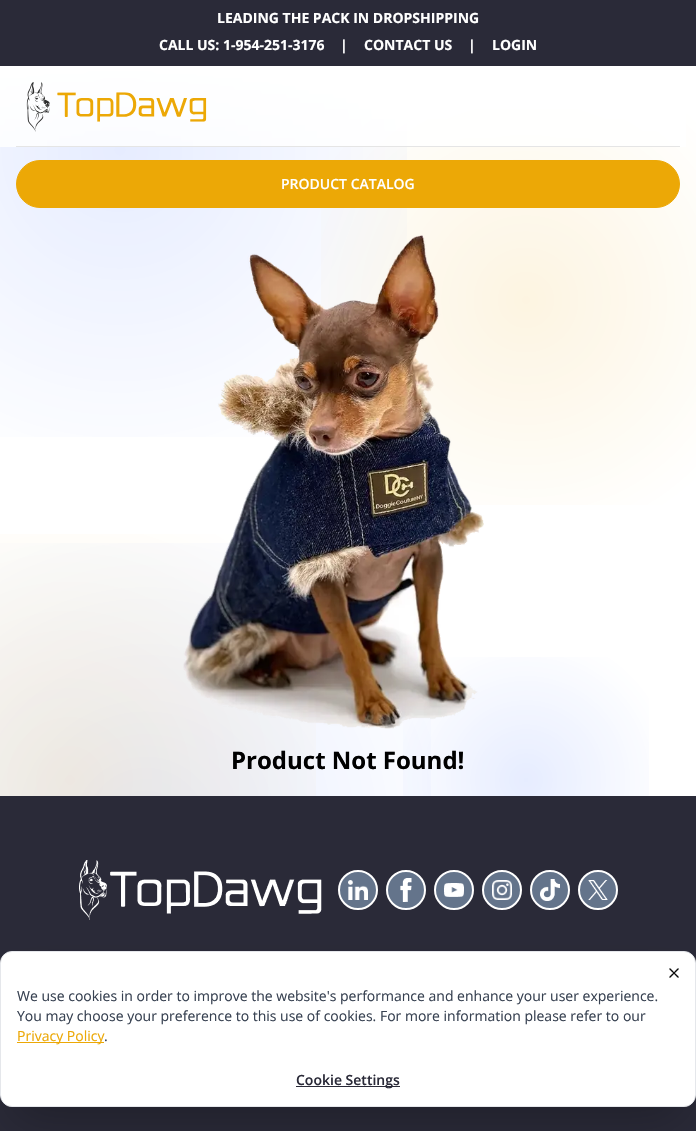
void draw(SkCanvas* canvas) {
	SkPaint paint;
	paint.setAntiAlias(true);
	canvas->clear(0xffffffff);
	{
		const SkColor colors[] = {0x1f3265ff, 0x003265ff};
		const float stops[] = {0, 1};
		paint.setShader(SkGradientShader::MakeRadial({526, 780}, 150, colors, stops, 2, SkTileMode::kClamp));
		paint.setAlpha(255);
	}
	canvas->drawRect(SkRect::MakeXYWH(403, 657, 246, 139), paint);
	{
		const SkColor colors[] = {0x1feca706, 0x00eca706};
		const float stops[] = {0, 1};
		paint.setShader(SkGradientShader::MakeRadial({526, 300}, 250, colors, stops, 2, SkTileMode::kClamp));
		paint.setAlpha(255);
	}
	canvas->drawRect(SkRect::MakeXYWH(321, 95, 375, 410), paint);
	{
		const SkColor colors[] = {0x1f3265ff, 0x003265ff};
		const float stops[] = {0, 1};
		paint.setShader(SkGradientShader::MakeRadial({146, 830}, 350, colors, stops, 2, SkTileMode::kClamp));
		paint.setAlpha(255);
	}
	canvas->drawRect(SkRect::MakeXYWH(0, 543, 431, 253), paint);
	{
		const SkColor colors[] = {0x1feca706, 0x00eca706};
		const float stops[] = {0, 1};
		paint.setShader(SkGradientShader::MakeRadial({70, 780}, 300, colors, stops, 2, SkTileMode::kClamp));
		paint.setAlpha(255);
	}
	canvas->drawRect(SkRect::MakeXYWH(0, 534, 316, 262), paint);
	{
		const SkColor colors[] = {0x1f3265ff, 0x003265ff};
		const float stops[] = {0, 1};
		paint.setShader(SkGradientShader::MakeRadial({120, 150}, 350, colors, stops, 2, SkTileMode::kClamp));
		paint.setAlpha(255);
	}
	canvas->drawRect(SkRect::MakeXYWH(0, 66, 407, 371), paint);
	{
		const SkColor colors[] = {0xffffffff, 0xf2ffffff, 0xccffffff};
		const float stops[] = {0, 0.5, 1};
		const SkPoint ends[] = {{348, 0}, {348, 147}};
		paint.setShader(SkGradientShader::MakeLinear(ends, colors, stops, 3, SkTileMode::kClamp));
		paint.setAlpha(255);
	}
	canvas->drawRect(SkRect::MakeXYWH(0, 66, 686, 81), paint);
	paint.setShader(nullptr);
	paint.setColor(0xff2a2a38);
	canvas->drawRect(SkRect::MakeXYWH(0, 0, 696, 66), paint);
	SkFont f1(fontMgr->matchFamilyStyle("Open Sans", SkFontStyle::Bold()), 14);
	f1.setSubpixel(true);
	paint.setColor(0xffffffff);
	canvas->drawString("LEADING THE PACK IN DROPSHIPPING", 217, 23, f1, paint);
	canvas->drawString("CALL US: 1-954-251-3176", 159, 50, f1, paint);
	canvas->drawString("|", 340, 50, f1, paint);
	canvas->drawString("CONTACT US", 364, 50, f1, paint);
	canvas->drawString("|", 468, 50, f1, paint);
	canvas->drawString("LOGIN", 492, 50, f1, paint);
	canvas->drawImageRect(SkImages::DeferredFromEncodedData(SkData::MakeFromFileName("img1.png")), SkRect::MakeXYWH(26, 82, 181, 50), SkSamplingOptions());
	paint.setColor(0xffe5e5e5);
	canvas->drawRect(SkRect::MakeXYWH(16, 146, 664, 1), paint);
	paint.setColor(0xffeca806);
	canvas->drawRoundRect(SkRect::MakeXYWH(16.5, 160.5, 663, 47), 23.5, 23.5, paint);
	paint.setStroke(true);
	paint.setStrokeWidth(1);
	canvas->drawRoundRect(SkRect::MakeXYWH(16.5, 160.5, 663, 47), 23.5, 23.5, paint);
	SkFont f2(fontMgr->matchFamilyStyle("Open Sans", SkFontStyle(600, SkFontStyle::kNormal_Width, SkFontStyle::kUpright_Slant)), 14);
	f2.setSubpixel(true);
	paint.setStroke(false);
	paint.setColor(0xffffffff);
	canvas->drawString("PRODUCT CATALOG", 281, 189, f2, paint);
	canvas->drawImageRect(SkImages::DeferredFromEncodedData(SkData::MakeFromFileName("img2.png")), SkRect::MakeXYWH(183, 235, 301, 494), SkSamplingOptions());
	SkFont f3(fontMgr->matchFamilyStyle("Open Sans", SkFontStyle::Bold()), 24);
	f3.setSubpixel(true);
	paint.setColor(0xff000000);
	canvas->drawString("Product Not Found!", 231, 769, f3, paint);
	paint.setColor(0xff2a2a38);
	canvas->drawRect(SkRect::MakeXYWH(0, 796, 696, 335), paint);
	canvas->drawImageRect(SkImages::DeferredFromEncodedData(SkData::MakeFromFileName("img3.png")), SkRect::MakeXYWH(79, 860, 243, 60), SkSamplingOptions());
	paint.setColor(0xff64748b);
	canvas->drawCircle(358, 890, 19, paint);
	paint.setStroke(true);
	paint.setStrokeWidth(2);
	paint.setColor(0xffffffff);
	canvas->drawCircle(358, 890, 19, paint);
	canvas->drawImageRect(SkImages::DeferredFromEncodedData(SkData::MakeFromFileName("img4.png")), SkRect::MakeXYWH(348, 880, 20, 20), SkSamplingOptions());
	paint.setStroke(false);
	paint.setColor(0xff64748b);
	canvas->drawCircle(406, 890, 19, paint);
	paint.setStroke(true);
	paint.setColor(0xffffffff);
	canvas->drawCircle(406, 890, 19, paint);
	canvas->drawImageRect(SkImages::DeferredFromEncodedData(SkData::MakeFromFileName("img5.png")), SkRect::MakeXYWH(400, 878, 12, 24), SkSamplingOptions());
	paint.setStroke(false);
	paint.setColor(0xff64748b);
	canvas->drawCircle(454, 890, 19, paint);
	paint.setStroke(true);
	paint.setColor(0xffffffff);
	canvas->drawCircle(454, 890, 19, paint);
	canvas->drawImageRect(SkImages::DeferredFromEncodedData(SkData::MakeFromFileName("img6.png")), SkRect::MakeXYWH(444, 883, 20, 14), SkSamplingOptions());
	paint.setStroke(false);
	paint.setColor(0xff64748b);
	canvas->drawCircle(502, 890, 19, paint);
	paint.setStroke(true);
	paint.setColor(0xffffffff);
	canvas->drawCircle(502, 890, 19, paint);
	canvas->drawImageRect(SkImages::DeferredFromEncodedData(SkData::MakeFromFileName("img7.png")), SkRect::MakeXYWH(492, 880, 20, 20), SkSamplingOptions());
	paint.setStroke(false);
	paint.setColor(0xff64748b);
	canvas->drawCircle(550, 890, 19, paint);
	paint.setStroke(true);
	paint.setColor(0xffffffff);
	canvas->drawCircle(550, 890, 19, paint);
	canvas->drawImageRect(SkImages::DeferredFromEncodedData(SkData::MakeFromFileName("img8.png")), SkRect::MakeXYWH(540, 879, 20, 22), SkSamplingOptions());
	paint.setStroke(false);
	paint.setColor(0xff64748b);
	canvas->drawCircle(598, 890, 19, paint);
	paint.setStroke(true);
	paint.setColor(0xffffffff);
	canvas->drawCircle(598, 890, 19, paint);
	canvas->drawImageRect(SkImages::DeferredFromEncodedData(SkData::MakeFromFileName("img9.png")), SkRect::MakeXYWH(588, 880, 20, 20), SkSamplingOptions());
	paint.setStroke(false);
	paint.setColor(0x40000000);
	paint.setMaskFilter(SkMaskFilter::MakeBlur(kNormal_SkBlurStyle, 25));
	canvas->drawRect(SkRect::MakeXYWH(12, 988, 672, 132), paint);
	paint.setMaskFilter(nullptr);
	paint.setColor(0xffffffff);
	canvas->drawRoundRect(SkRect::MakeXYWH(0.5, 951.5, 695, 155), 11.5, 11.5, paint);
	paint.setStroke(true);
	paint.setStrokeWidth(1);
	paint.setColor(0xffe5e7eb);
	canvas->drawRoundRect(SkRect::MakeXYWH(0.5, 951.5, 695, 155), 11.5, 11.5, paint);
	canvas->drawImageRect(SkImages::DeferredFromEncodedData(SkData::MakeFromFileName("img10.png")), SkRect::MakeXYWH(669, 968, 10, 10), SkSamplingOptions());
	SkFont f4(fontMgr->matchFamilyStyle("Open Sans", SkFontStyle::Normal()), 14);
	f4.setSubpixel(true);
	paint.setStroke(false);
	paint.setColor(0xff374151);
	canvas->drawString("We use cookies in order to improve the website's performance and enhance your user experience.", 17, 1001, f4, paint);
	canvas->drawString("You may choose your preference to this use of cookies. For more information please refer to our", 17, 1021, f4, paint);
	paint.setColor(0xffeca806);
	canvas->drawRect(SkRect::MakeXYWH(17, 1042, 87, 1), paint);
	canvas->drawString("Privacy Policy", 17, 1041, f4, paint);
	paint.setColor(0xff374151);
	canvas->drawString(".", 104, 1041, f4, paint);
	paint.setColor(0xff2a2a38);
	canvas->drawRect(SkRect::MakeXYWH(296, 1086, 104, 1), paint);
	canvas->drawString("Cookie Settings", 296, 1085, f2, paint);
}
